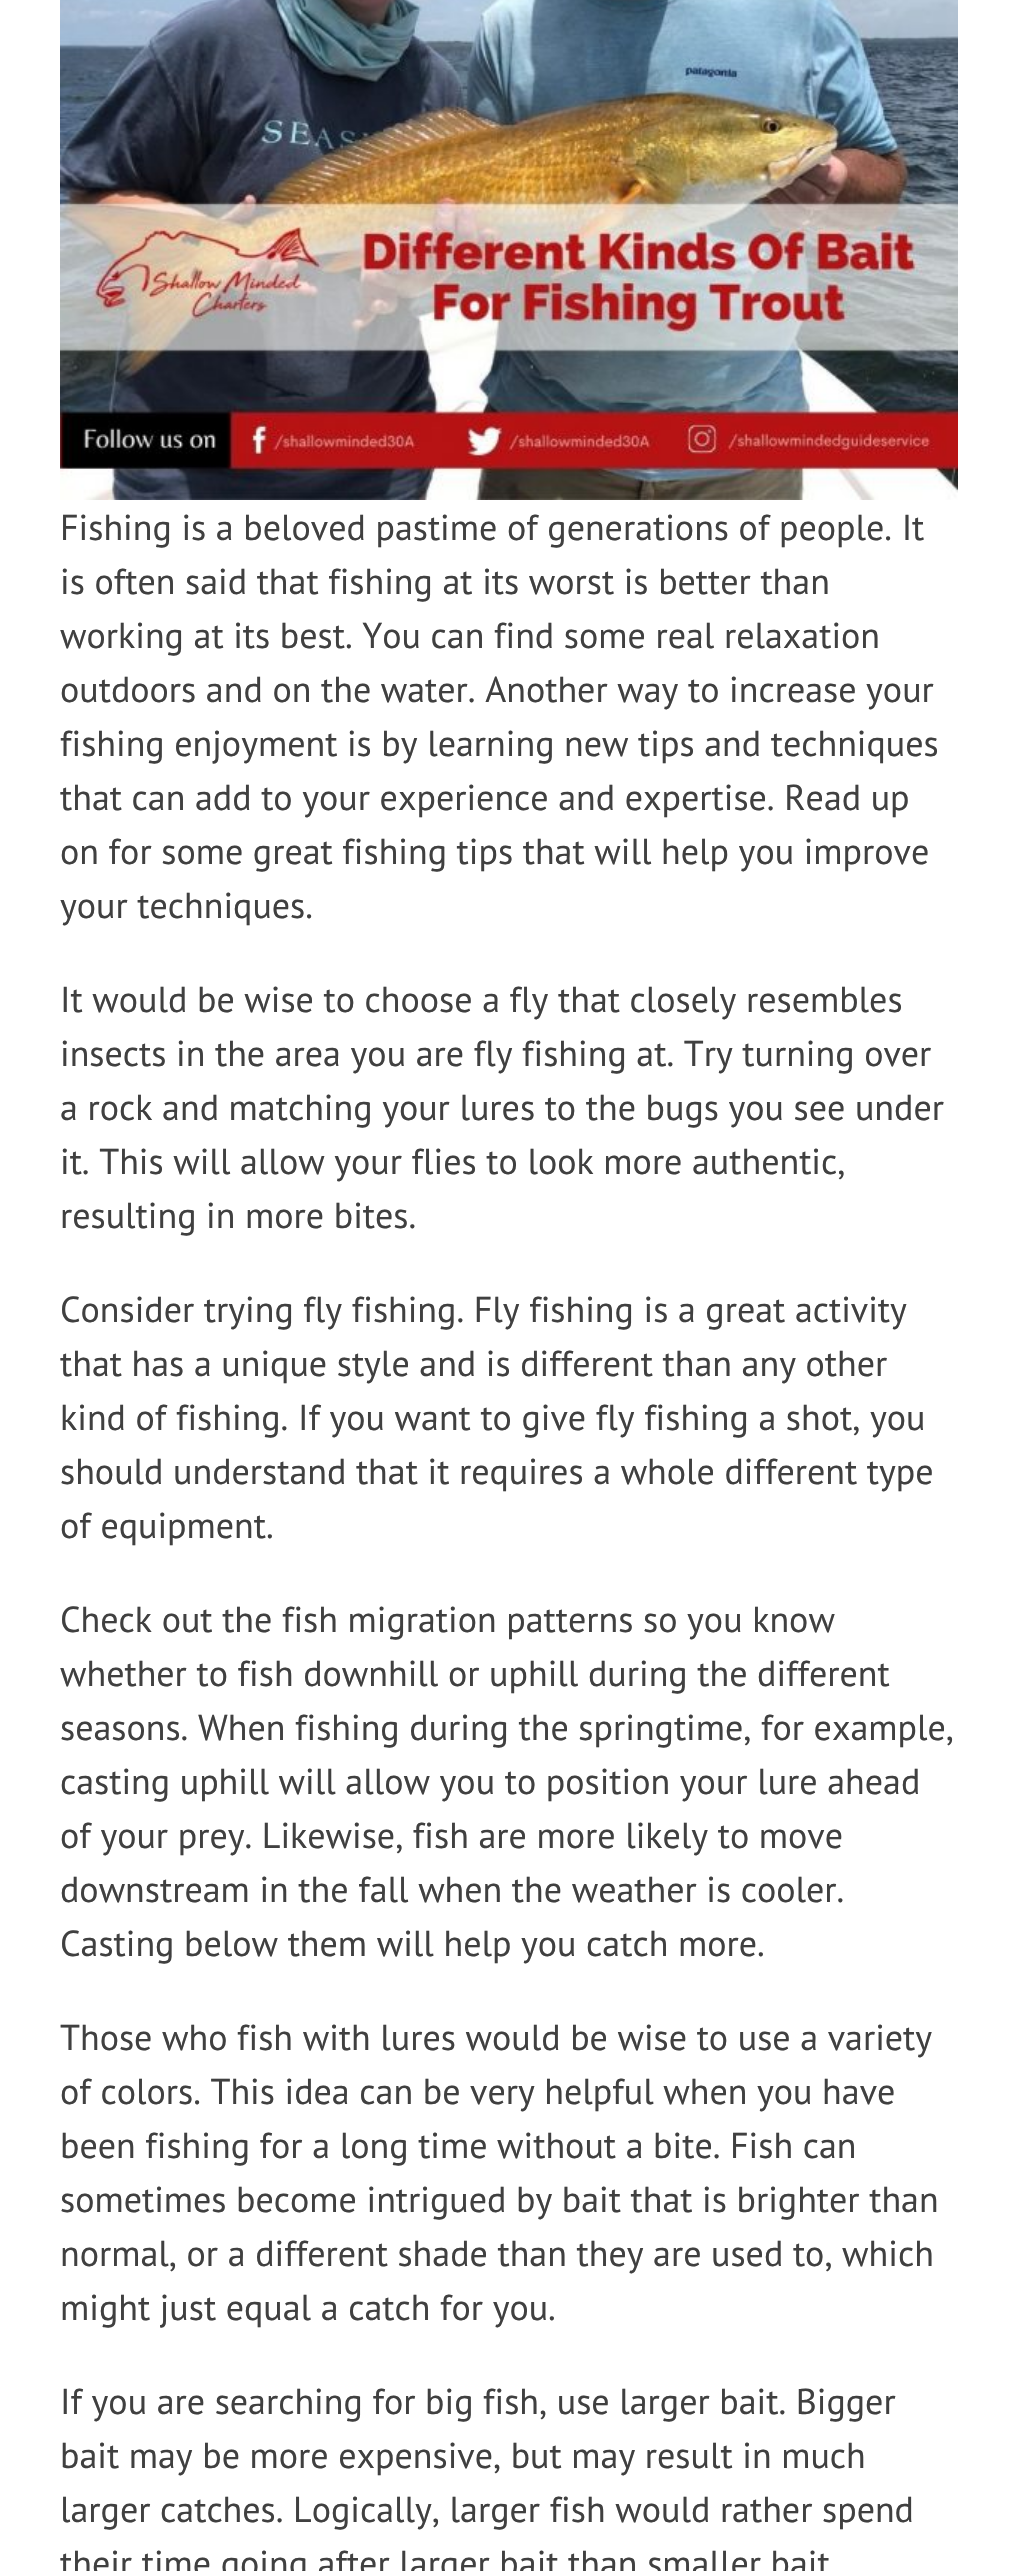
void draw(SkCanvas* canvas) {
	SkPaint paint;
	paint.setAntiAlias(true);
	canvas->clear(0xffffffff);
	canvas->drawImageRect(SkImages::DeferredFromEncodedData(SkData::MakeFromFileName("img1.png")), SkRect::MakeXYWH(60, 0, 898, 500), SkSamplingOptions());
	SkFont f1(fontMgr->matchFamilyStyle("PT Sans", SkFontStyle::Normal()), 36);
	f1.setSubpixel(true);
	paint.setColor(0xff404040);
	canvas->drawString("Fishing is a beloved pastime of generations of people. It", 60, 540, f1, paint);
	canvas->drawString("is often said that fishing at its worst is better than", 60, 594, f1, paint);
	canvas->drawString("working at its best. You can find some real relaxation", 60, 648, f1, paint);
	canvas->drawString("outdoors and on the water. Another way to increase your", 60, 702, f1, paint);
	canvas->drawString("fishing enjoyment is by learning new tips and techniques", 60, 756, f1, paint);
	canvas->drawString("that can add to your experience and expertise. Read up", 60, 810, f1, paint);
	canvas->drawString("on for some great fishing tips that will help you improve", 60, 864, f1, paint);
	canvas->drawString("your techniques.", 60, 918, f1, paint);
	canvas->drawString("It would be wise to choose a fly that closely resembles", 60, 1012, f1, paint);
	canvas->drawString("insects in the area you are fly fishing at. Try turning over", 60, 1066, f1, paint);
	canvas->drawString("a rock and matching your lures to the bugs you see under", 60, 1120, f1, paint);
	canvas->drawString("it. This will allow your flies to look more authentic,", 60, 1174, f1, paint);
	canvas->drawString("resulting in more bites.", 60, 1228, f1, paint);
	canvas->drawString("Consider trying fly fishing. Fly fishing is a great activity", 60, 1322, f1, paint);
	canvas->drawString("that has a unique style and is different than any other", 60, 1376, f1, paint);
	canvas->drawString("kind of fishing. If you want to give fly fishing a shot, you", 60, 1430, f1, paint);
	canvas->drawString("should understand that it requires a whole different type", 60, 1484, f1, paint);
	canvas->drawString("of equipment.", 60, 1538, f1, paint);
	canvas->drawString("Check out the fish migration patterns so you know", 60, 1632, f1, paint);
	canvas->drawString("whether to fish downhill or uphill during the different", 60, 1686, f1, paint);
	canvas->drawString("seasons. When fishing during the springtime, for example,", 60, 1740, f1, paint);
	canvas->drawString("casting uphill will allow you to position your lure ahead", 60, 1794, f1, paint);
	canvas->drawString("of your prey. Likewise, fish are more likely to move", 60, 1848, f1, paint);
	canvas->drawString("downstream in the fall when the weather is cooler.", 60, 1902, f1, paint);
	canvas->drawString("Casting below them will help you catch more.", 60, 1956, f1, paint);
	canvas->drawString("Those who fish with lures would be wise to use a variety", 60, 2050, f1, paint);
	canvas->drawString("of colors. This idea can be very helpful when you have", 60, 2104, f1, paint);
	canvas->drawString("been fishing for a long time without a bite. Fish can", 60, 2158, f1, paint);
	canvas->drawString("sometimes become intrigued by bait that is brighter than", 60, 2212, f1, paint);
	canvas->drawString("normal, or a different shade than they are used to, which", 60, 2266, f1, paint);
	canvas->drawString("might just equal a catch for you.", 60, 2320, f1, paint);
	canvas->drawString("If you are searching for big fish, use larger bait. Bigger", 60, 2414, f1, paint);
	canvas->drawString("bait may be more expensive, but may result in much", 60, 2468, f1, paint);
	canvas->drawString("larger catches. Logically, larger fish would rather spend", 60, 2522, f1, paint);
	canvas->drawString("their time going after larger bait than smaller bait", 60, 2576, f1, paint);
}
